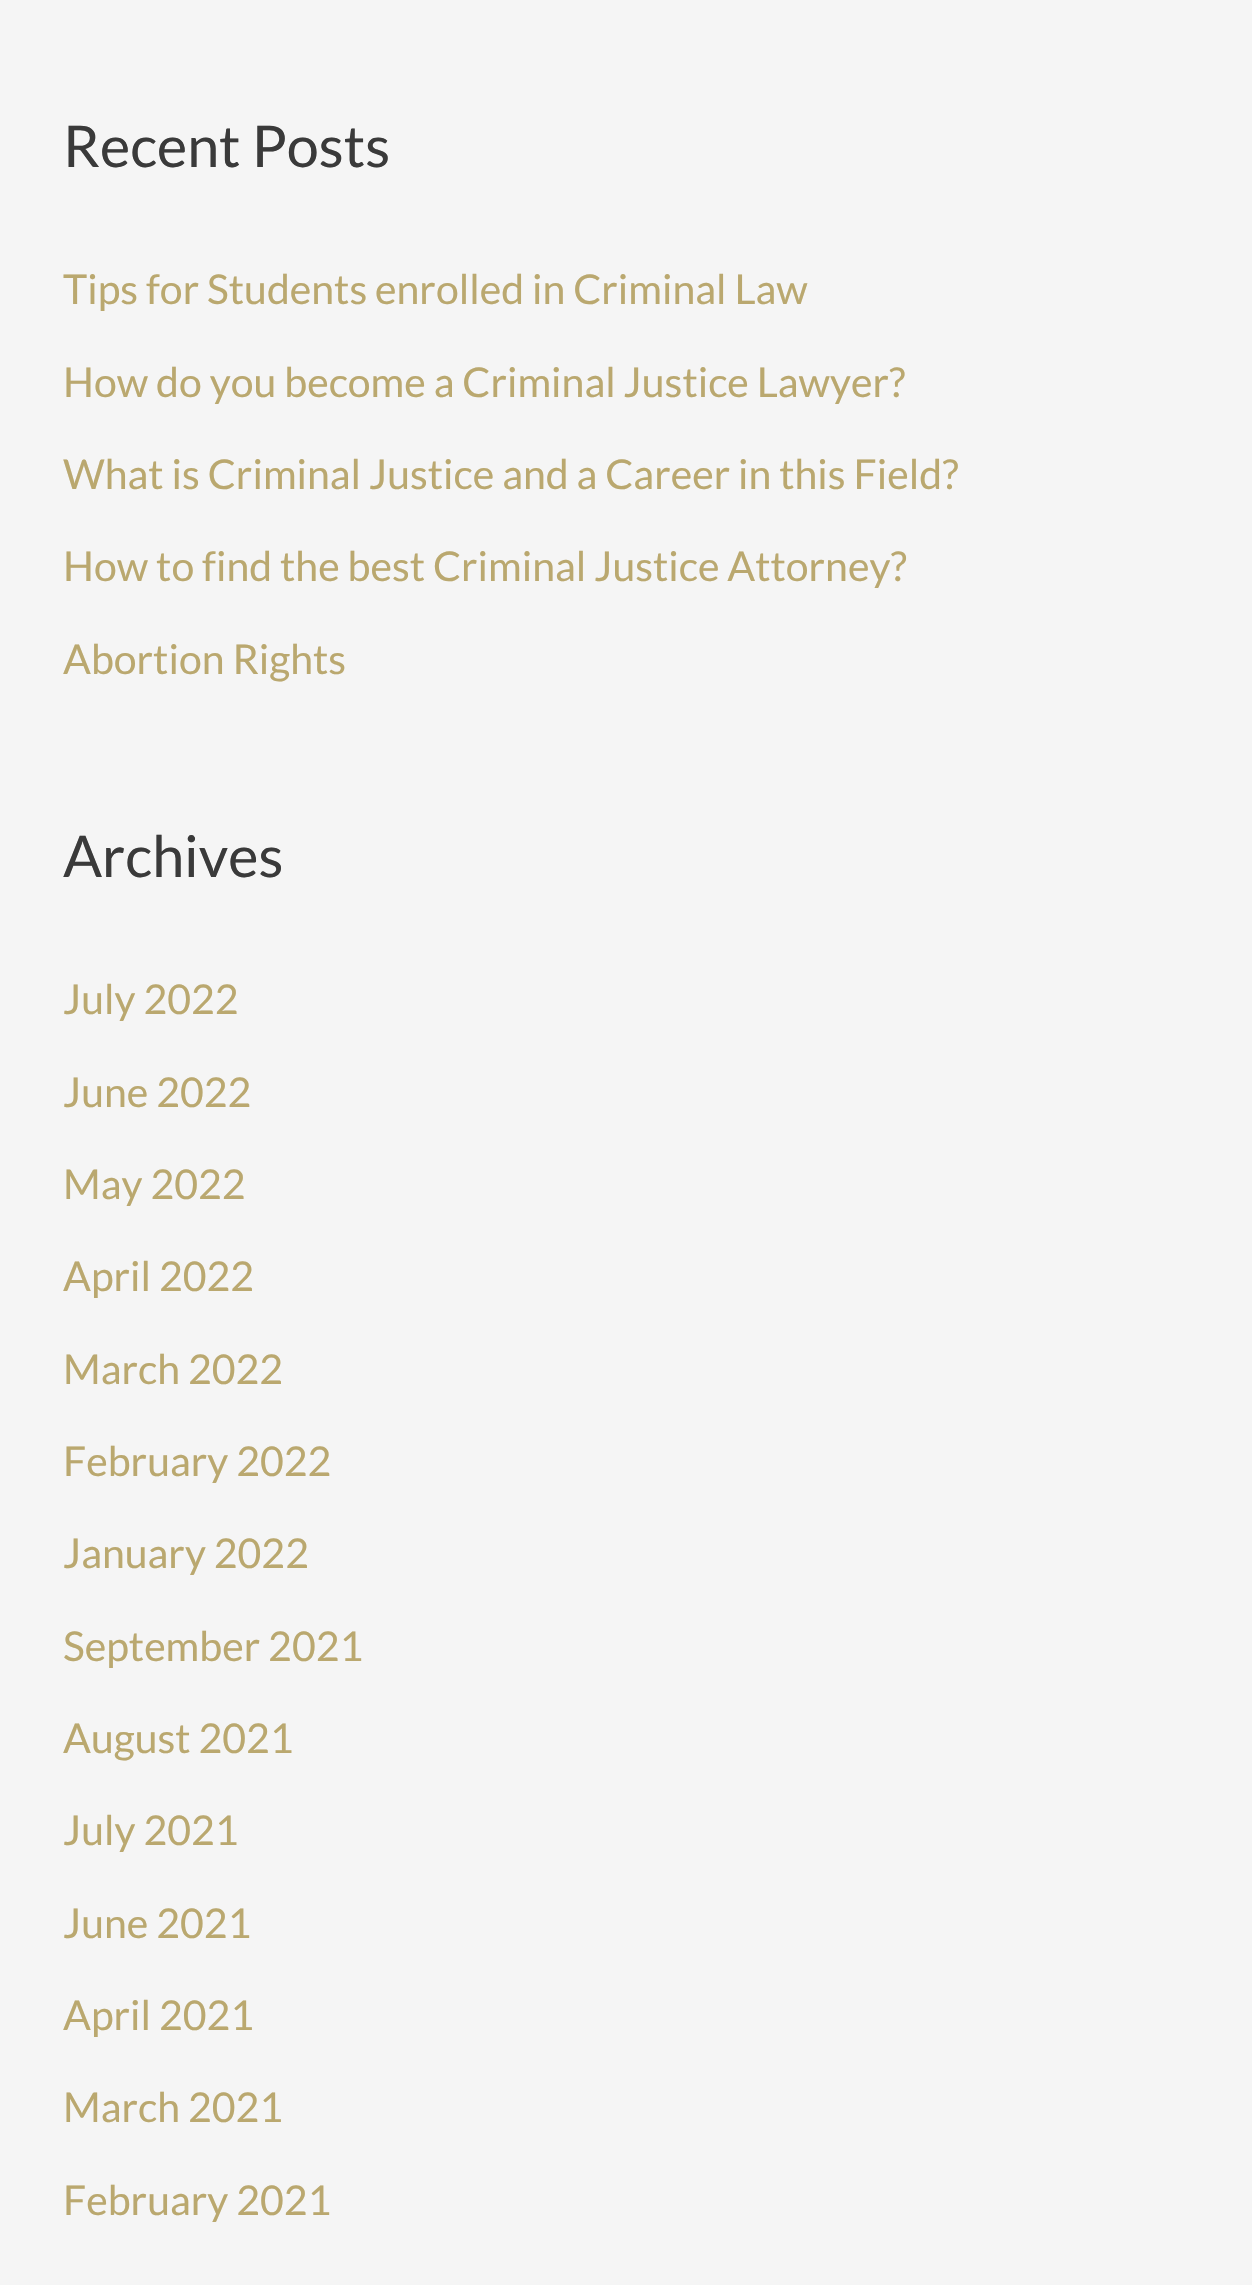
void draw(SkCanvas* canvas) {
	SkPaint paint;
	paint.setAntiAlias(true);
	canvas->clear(0xfff5f5f5);
	SkFont f1(fontMgr->matchFamilyStyle("Lato", SkFontStyle::Normal()), 57.5);
	f1.setSubpixel(true);
	paint.setColor(0xff3a3a3a);
	canvas->drawString("Recent Posts", 63, 167, f1, paint);
	SkFont f2(fontMgr->matchFamilyStyle("Lato", SkFontStyle::Normal()), 41);
	f2.setSubpixel(true);
	paint.setColor(0xffbaa86f);
	canvas->drawString("Tips for Students enrolled in Criminal Law", 63, 304, f2, paint);
	canvas->drawString("How do you become a Criminal Justice Lawyer?", 63, 397, f2, paint);
	canvas->drawString("What is Criminal Justice and a Career in this Field?", 63, 489, f2, paint);
	canvas->drawString("How to find the best Criminal Justice Attorney?", 63, 581, f2, paint);
	canvas->drawString("Abortion Rights", 63, 674, f2, paint);
	paint.setColor(0xff3a3a3a);
	canvas->drawString("Archives", 63, 877, f1, paint);
	paint.setColor(0xffbaa86f);
	canvas->drawString("July 2022", 63, 1014, f2, paint);
	canvas->drawString("June 2022", 63, 1107, f2, paint);
	canvas->drawString("May 2022", 63, 1199, f2, paint);
	canvas->drawString("April 2022", 63, 1291, f2, paint);
	canvas->drawString("March 2022", 63, 1384, f2, paint);
	canvas->drawString("February 2022", 63, 1476, f2, paint);
	canvas->drawString("January 2022", 63, 1568, f2, paint);
	canvas->drawString("September 2021", 63, 1661, f2, paint);
	canvas->drawString("August 2021", 63, 1753, f2, paint);
	canvas->drawString("July 2021", 63, 1845, f2, paint);
	canvas->drawString("June 2021", 63, 1938, f2, paint);
	canvas->drawString("April 2021", 63, 2030, f2, paint);
	canvas->drawString("March 2021", 63, 2122, f2, paint);
	canvas->drawString("February 2021", 63, 2215, f2, paint);
}
